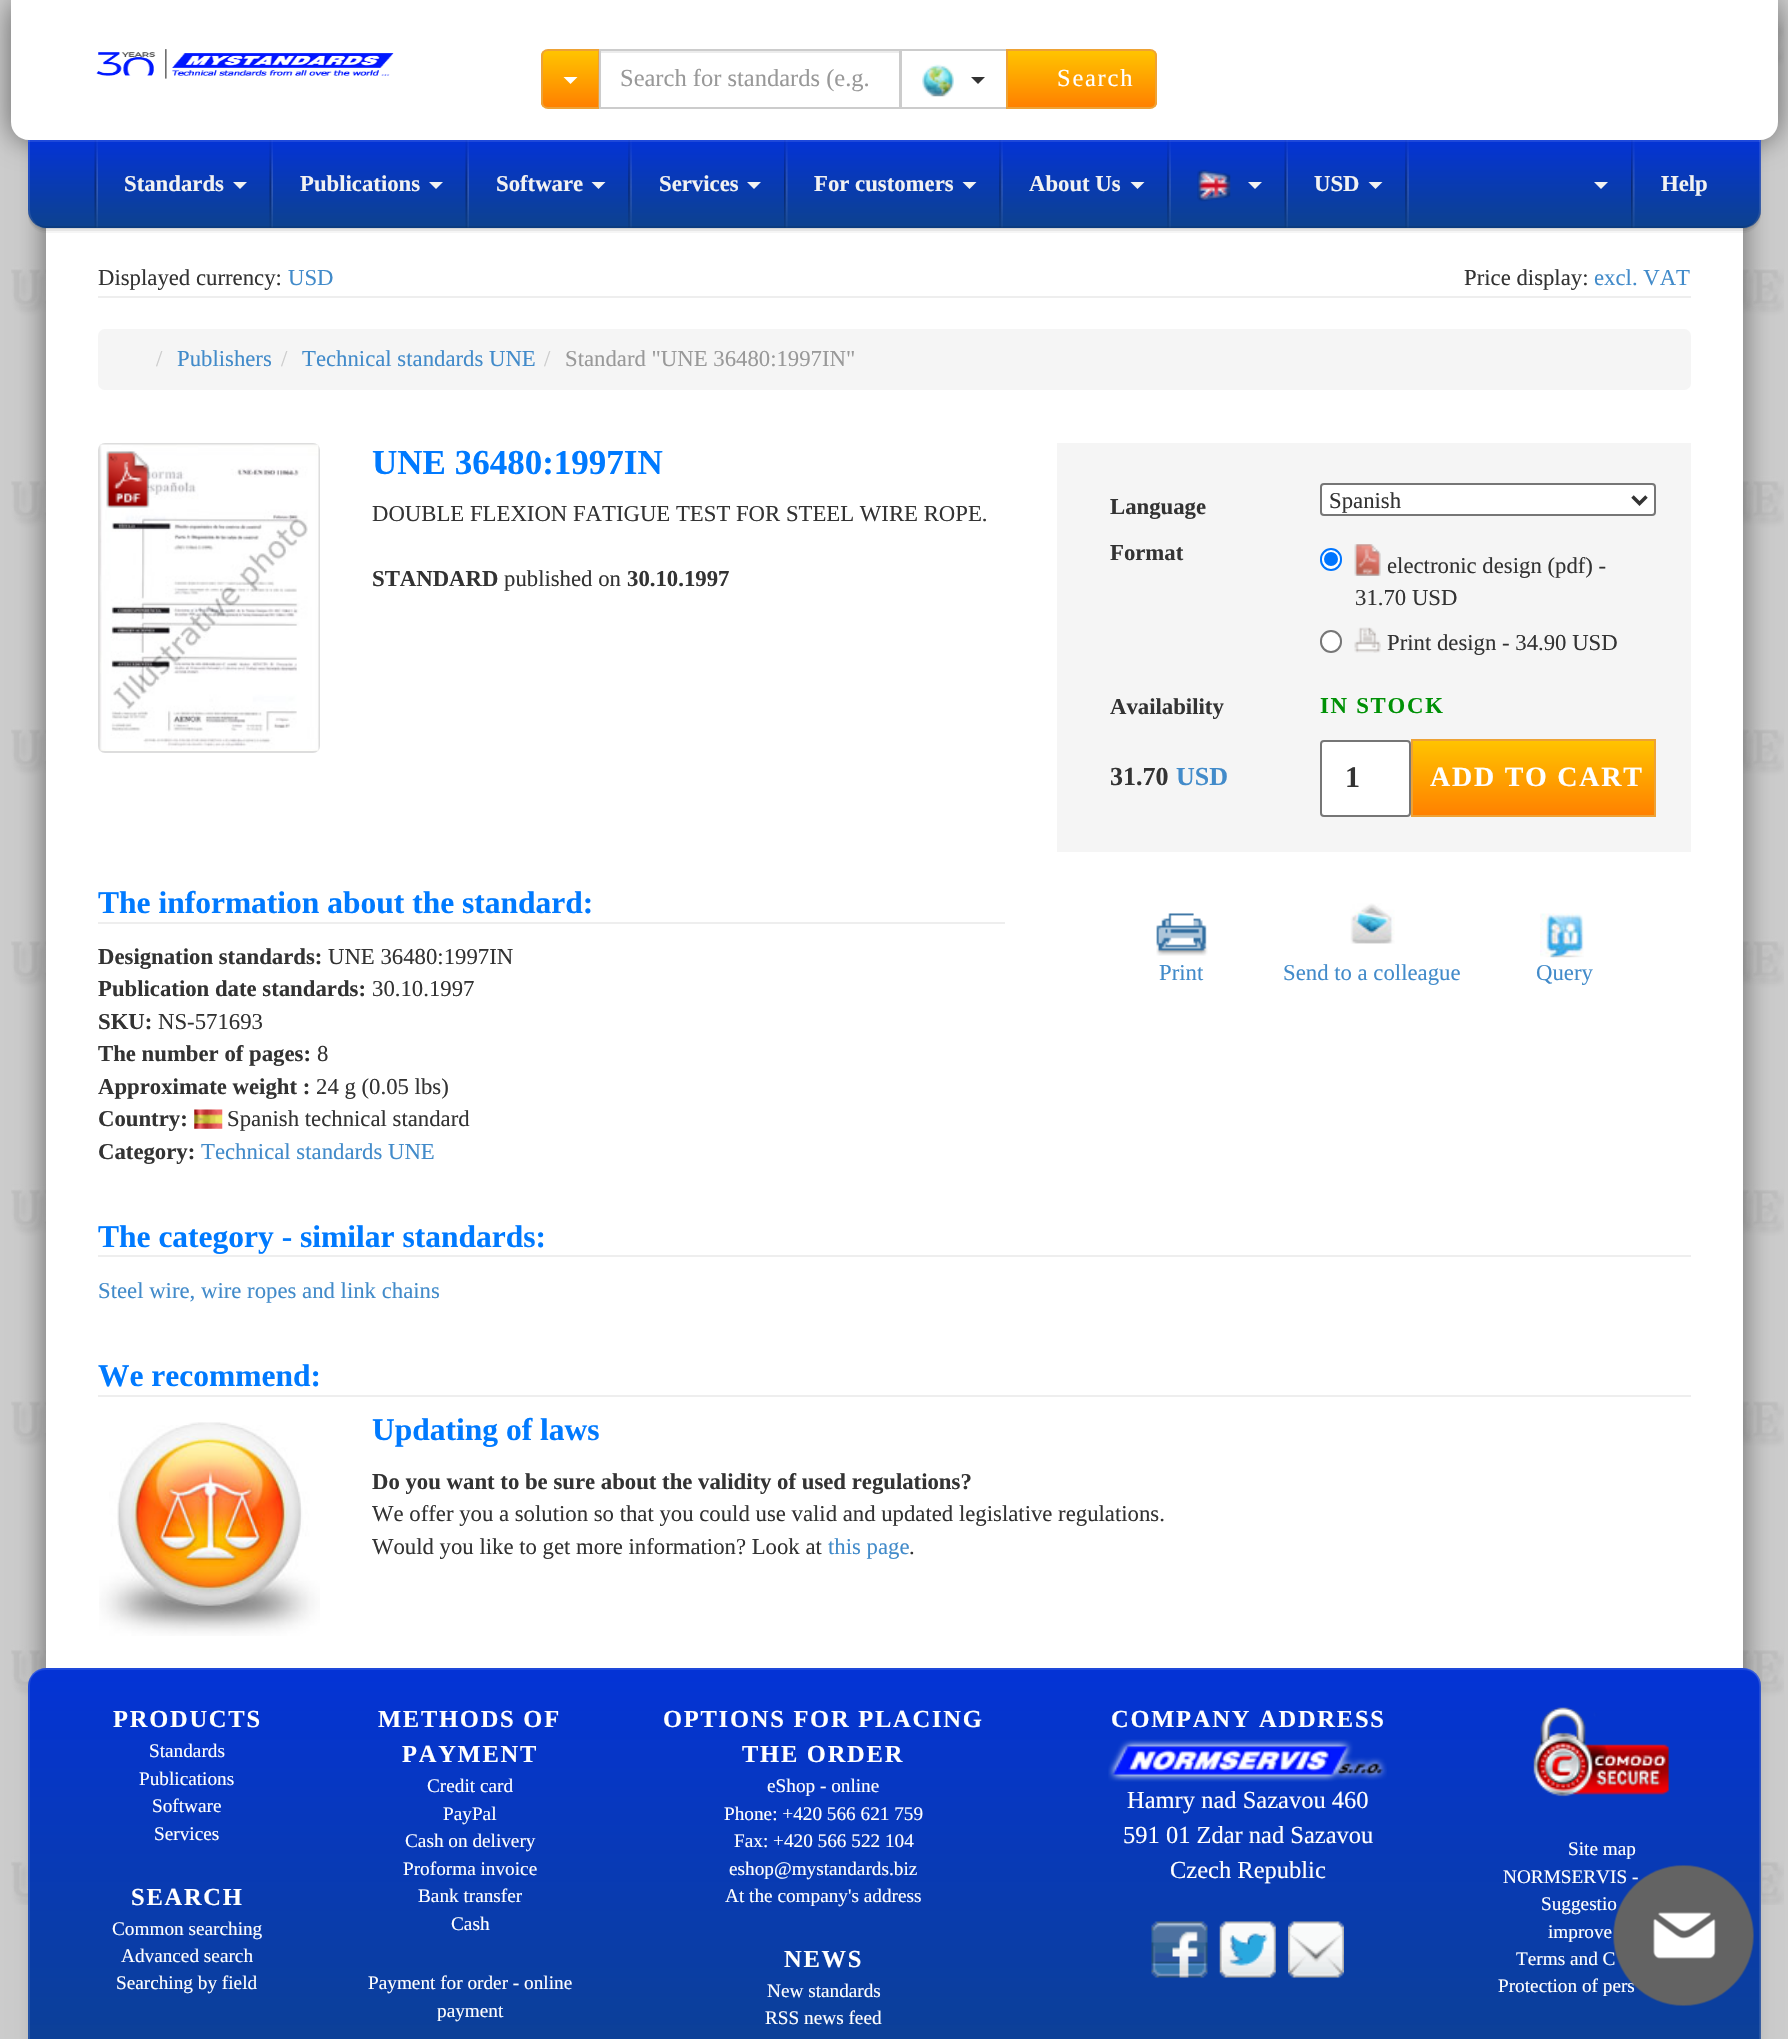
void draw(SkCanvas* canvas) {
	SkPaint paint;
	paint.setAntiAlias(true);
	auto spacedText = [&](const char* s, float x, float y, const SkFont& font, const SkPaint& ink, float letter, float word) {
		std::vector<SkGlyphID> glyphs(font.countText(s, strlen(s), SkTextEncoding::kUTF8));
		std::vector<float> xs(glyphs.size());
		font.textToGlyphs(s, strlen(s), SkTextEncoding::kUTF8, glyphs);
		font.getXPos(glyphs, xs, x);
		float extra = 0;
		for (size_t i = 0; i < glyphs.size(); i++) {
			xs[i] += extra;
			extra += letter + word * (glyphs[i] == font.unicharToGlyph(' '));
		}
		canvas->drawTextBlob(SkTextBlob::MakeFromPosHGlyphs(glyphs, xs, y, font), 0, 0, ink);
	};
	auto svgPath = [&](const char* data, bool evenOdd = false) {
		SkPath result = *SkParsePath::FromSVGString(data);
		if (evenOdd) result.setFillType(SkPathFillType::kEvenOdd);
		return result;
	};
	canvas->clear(0xffcccccc);
	canvas->drawImageRect(SkImages::DeferredFromEncodedData(SkData::MakeFromFileName("img1.png")), SkRect::MakeXYWH(11, 21, 1773, 1884), SkSamplingOptions());
	paint.setColor(0x80000000);
	paint.setMaskFilter(SkMaskFilter::MakeBlur(kNormal_SkBlurStyle, 14));
	canvas->drawRect(SkRect::MakeXYWH(46, 0, 1697, 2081), paint);
	paint.setMaskFilter(nullptr);
	paint.setColor(0xffffffff);
	canvas->drawRect(SkRect::MakeXYWH(46, 228, 1697, 1440), paint);
	paint.setColor(0x80000000);
	paint.setMaskFilter(SkMaskFilter::MakeBlur(kNormal_SkBlurStyle, 14));
	canvas->drawRoundRect(SkRect::MakeXYWH(11, 0, 1767, 140), 18, 18, paint);
	paint.setMaskFilter(nullptr);
	paint.setColor(0xffffffff);
	canvas->drawPath(svgPath("M11 0H1778V122C1778 132 1770 140 1760 140H29C19 140 11 132 11 122Z"), paint);
	canvas->drawImageRect(SkImages::DeferredFromEncodedData(SkData::MakeFromFileName("img2.png")), SkRect::MakeXYWH(96, 49, 298, 30), SkSamplingOptions());
	canvas->save();
	canvas->clipPath(svgPath("M548 49H600V109H548C544 109 541 106 541 102V56C541 52 544 49 548 49Z"), true);
	{
		const SkColor colors[] = {0xffffc400, 0xffff8000};
		const float stops[] = {0, 1};
		const SkPoint ends[] = {{571, 51}, {571, 107}};
		paint.setShader(SkGradientShader::MakeLinear(ends, colors, stops, 2, SkTileMode::kClamp));
		paint.setAlpha(255);
	}
	canvas->drawRect(SkRect::MakeXYWH(541, 51, 57, 56), paint);
	canvas->restore();
	paint.setStroke(true);
	paint.setStrokeWidth(2);
	paint.setShader(nullptr);
	paint.setColor(0xffeea236);
	canvas->drawPath(svgPath("M548 50H599V108H548C544.5 108 542 105.5 542 102V56C542 52.5 544.5 50 548 50Z"), paint);
	paint.setStroke(false);
	paint.setColor(0xffffffff);
	canvas->drawPath(svgPath("M563.5 77H577.5L570.5 84Z"), paint);
	paint.setColor(0xffececec);
	canvas->drawRect(SkRect::MakeXYWH(600, 51, 300, 2), paint);
	paint.setStroke(true);
	paint.setColor(0xffcccccc);
	canvas->drawRect(SkRect::MakeXYWH(901, 50, 106, 58), paint);
	canvas->drawRect(SkRect::MakeXYWH(600, 50, 300, 58), paint);
	SkFont f1(fontMgr->matchFamilyStyle("Liberation Serif", SkFontStyle::Normal()), 24.5);
	f1.setSubpixel(true);
	paint.setStroke(false);
	paint.setColor(0xff999999);
	canvas->drawString("Search for standards (e.g.", 620, 86, f1, paint);
	canvas->drawImageRect(SkImages::DeferredFromEncodedData(SkData::MakeFromFileName("img3.png")), SkRect::MakeXYWH(922, 64, 32, 33), SkSamplingOptions());
	paint.setColor(0xff333333);
	canvas->drawPath(svgPath("M971 77H985L978 84Z"), paint);
	canvas->save();
	canvas->clipPath(svgPath("M1006 49H1150C1154 49 1157 52 1157 56V102C1157 106 1154 109 1150 109H1006Z"), true);
	{
		const SkColor colors[] = {0xffffc400, 0xffff8000};
		const float stops[] = {0, 1};
		const SkPoint ends[] = {{1082, 51}, {1082, 107}};
		paint.setShader(SkGradientShader::MakeLinear(ends, colors, stops, 2, SkTileMode::kClamp));
		paint.setAlpha(255);
	}
	canvas->drawRect(SkRect::MakeXYWH(1008, 51, 149, 56), paint);
	canvas->restore();
	paint.setStroke(true);
	paint.setShader(nullptr);
	paint.setColor(0xffeea236);
	canvas->drawPath(svgPath("M1007 50H1150C1153.5 50 1156 52.5 1156 56V102C1156 105.5 1153.5 108 1150 108H1007Z"), paint);
	paint.setStroke(false);
	paint.setColor(0xffffffff);
	spacedText("Search", 1057, 86, f1, paint, 1.75, 0);
	paint.setColor(0x14000000);
	canvas->drawPath(svgPath("M28 210V211C28 221 36 229 46 229H1743C1753 229 1761 221 1761 211V142H1760V210C1760 220 1753 228 1743 228H46C36 228 28 220 28 210Z"), paint);
	paint.setColor(0x0f000000);
	canvas->drawPath(svgPath("M28 210V213C28 223 36 231 46 231H1743C1753 231 1761 223 1761 213V144H1760V210C1760 220 1753 228 1743 228H46C36 228 28 220 28 210Z"), paint);
	paint.setColor(0x0a000000);
	canvas->drawPath(svgPath("M28 210V215C28 225 36 233 46 233H1743C1753 233 1761 225 1761 215V145H1760V210C1760 220 1753 228 1743 228H46C36 228 28 220 28 210Z"), paint);
	{
		const SkColor colors[] = {0xff0433d6, 0xff0d428e};
		const float stops[] = {0, 1};
		const SkPoint ends[] = {{894, 140}, {894, 228}};
		paint.setShader(SkGradientShader::MakeLinear(ends, colors, stops, 2, SkTileMode::kClamp));
		paint.setAlpha(255);
	}
	canvas->drawPath(svgPath("M28 140H1761V210C1761 220 1753 228 1743 228H46C36 228 28 220 28 210Z"), paint);
	paint.setShader(nullptr);
	paint.setColor(0x1a000000);
	canvas->drawPath(svgPath("M28 208V210C28 220 36 228 46 228H1743C1753 228 1761 220 1761 210V140H1760V208C1760 218 1753 226 1743 226H46C36 226 28 218 28 208Z"), paint);
	paint.setColor(0x1affffff);
	canvas->drawPath(svgPath("M1741 228C1766 228 1761 204 1761 187V140H1759V210C1759 220 1751 228 1741 228Z"), paint);
	canvas->drawPath(svgPath("M28 140V187C28 203 23 228 47 228C38 228 30 220 30 210V140Z"), paint);
	canvas->drawPath(svgPath("M28 142H1760V212C1760 215 1759 217 1758 220C1760 217 1761 214 1761 210V140H28Z"), paint);
	canvas->drawImageRect(SkImages::DeferredFromEncodedData(SkData::MakeFromFileName("img4.png")), SkRect::MakeXYWH(94, 140, 4, 88), SkSamplingOptions());
	canvas->drawImageRect(SkImages::DeferredFromEncodedData(SkData::MakeFromFileName("img4.png")), SkRect::MakeXYWH(269, 140, 4, 88), SkSamplingOptions());
	SkFont f2(fontMgr->matchFamilyStyle("Liberation Serif", SkFontStyle::Bold()), 22.75);
	f2.setSubpixel(true);
	paint.setColor(0xfff2f2f2);
	canvas->drawString("Standards", 124, 191, f2, paint);
	canvas->drawPath(svgPath("M233 182H247L240 189Z"), paint);
	canvas->drawImageRect(SkImages::DeferredFromEncodedData(SkData::MakeFromFileName("img4.png")), SkRect::MakeXYWH(465, 140, 4, 88), SkSamplingOptions());
	canvas->drawString("Publications", 300, 191, f2, paint);
	canvas->drawPath(svgPath("M429 182H443L436 189Z"), paint);
	canvas->drawImageRect(SkImages::DeferredFromEncodedData(SkData::MakeFromFileName("img5.png")), SkRect::MakeXYWH(628, 140, 4, 88), SkSamplingOptions());
	canvas->drawString("Software", 496, 191, f2, paint);
	canvas->drawPath(svgPath("M591.5 182H605.5L598.5 189Z"), paint);
	canvas->drawImageRect(SkImages::DeferredFromEncodedData(SkData::MakeFromFileName("img6.png")), SkRect::MakeXYWH(784, 140, 4, 88), SkSamplingOptions());
	canvas->drawString("Services", 659, 191, f2, paint);
	canvas->drawPath(svgPath("M747 182H761L754 189Z"), paint);
	canvas->drawImageRect(SkImages::DeferredFromEncodedData(SkData::MakeFromFileName("img5.png")), SkRect::MakeXYWH(999, 140, 4, 88), SkSamplingOptions());
	canvas->drawString("For customers", 814, 191, f2, paint);
	canvas->drawPath(svgPath("M962.5 182H976.5L969.5 189Z"), paint);
	canvas->drawImageRect(SkImages::DeferredFromEncodedData(SkData::MakeFromFileName("img5.png")), SkRect::MakeXYWH(1167, 140, 4, 88), SkSamplingOptions());
	canvas->drawString("About Us", 1029, 191, f2, paint);
	canvas->drawPath(svgPath("M1130.5 182H1144.5L1137.5 189Z"), paint);
	canvas->drawImageRect(SkImages::DeferredFromEncodedData(SkData::MakeFromFileName("img4.png")), SkRect::MakeXYWH(1284, 140, 4, 88), SkSamplingOptions());
	canvas->drawImageRect(SkImages::DeferredFromEncodedData(SkData::MakeFromFileName("img7.png")), SkRect::MakeXYWH(1197, 169, 34, 33), SkSamplingOptions());
	canvas->drawPath(svgPath("M1248 182H1262L1255 189Z"), paint);
	canvas->drawImageRect(SkImages::DeferredFromEncodedData(SkData::MakeFromFileName("img5.png")), SkRect::MakeXYWH(1405, 140, 4, 88), SkSamplingOptions());
	canvas->drawString("USD", 1314, 191, f2, paint);
	canvas->drawPath(svgPath("M1368.5 182H1382.5L1375.5 189Z"), paint);
	canvas->drawImageRect(SkImages::DeferredFromEncodedData(SkData::MakeFromFileName("img6.png")), SkRect::MakeXYWH(1631, 140, 4, 88), SkSamplingOptions());
	canvas->drawPath(svgPath("M1594 182H1608L1601 189Z"), paint);
	canvas->drawString("Help", 1661, 191, f2, paint);
	SkFont f3(fontMgr->matchFamilyStyle("Liberation Serif", SkFontStyle::Normal()), 22.75);
	f3.setSubpixel(true);
	paint.setColor(0xff333333);
	canvas->drawString("Displayed currency:", 98, 285, f3, paint);
	paint.setColor(0xff428bca);
	canvas->drawString("USD", 288, 285, f3, paint);
	paint.setColor(0xff333333);
	canvas->drawString("Price display:", 1464, 285, f3, paint);
	paint.setColor(0xff428bca);
	canvas->drawString("excl. VAT", 1594, 285, f3, paint);
	paint.setColor(0xffeeeeee);
	canvas->drawRect(SkRect::MakeXYWH(98, 296, 1593, 2), paint);
	paint.setColor(0xfff5f5f5);
	canvas->drawRoundRect(SkRect::MakeXYWH(98, 329, 1593, 61), 7, 7, paint);
	paint.setColor(0xffcccccc);
	canvas->drawString("/", 156, 366, f3, paint);
	paint.setColor(0xff428bca);
	canvas->drawString("Publishers", 177, 366, f3, paint);
	paint.setColor(0xffcccccc);
	canvas->drawString("/", 281, 366, f3, paint);
	paint.setColor(0xff428bca);
	canvas->drawString("Technical standards UNE", 302, 366, f3, paint);
	paint.setColor(0xffcccccc);
	canvas->drawString("/", 544, 366, f3, paint);
	paint.setColor(0xff999999);
	canvas->drawString("Standard \"UNE 36480:1997IN\"", 565, 366, f3, paint);
	paint.setStroke(true);
	paint.setColor(0xffdddddd);
	canvas->drawRoundRect(SkRect::MakeXYWH(99, 444, 220, 308), 6, 6, paint);
	canvas->drawImageRect(SkImages::DeferredFromEncodedData(SkData::MakeFromFileName("img8.png")), SkRect::MakeXYWH(99, 444, 220, 307), SkSamplingOptions());
	canvas->drawImageRect(SkImages::DeferredFromEncodedData(SkData::MakeFromFileName("img9.png")), SkRect::MakeXYWH(106, 451, 44, 57), SkSamplingOptions());
	SkFont f4(fontMgr->matchFamilyStyle("Liberation Serif", SkFontStyle::Bold()), 35);
	f4.setSubpixel(true);
	paint.setStroke(false);
	paint.setColor(0xff007aff);
	canvas->drawString("UNE 36480:1997IN", 372, 474, f4, paint);
	paint.setColor(0xff333333);
	canvas->drawString("DOUBLE FLEXION FATIGUE TEST FOR STEEL WIRE ROPE.", 372, 521, f3, paint);
	canvas->drawString("STANDARD", 372, 586, f2, paint);
	canvas->drawString("published on", 504, 586, f3, paint);
	canvas->drawString("30.10.1997", 627, 586, f2, paint);
	paint.setColor(0xfff5f5f5);
	canvas->drawRect(SkRect::MakeXYWH(1057, 443, 634, 409), paint);
	paint.setColor(0xff333333);
	canvas->drawString("Language", 1110, 514, f2, paint);
	paint.setColor(0xffffffff);
	canvas->drawRoundRect(SkRect::MakeXYWH(1321, 484, 334, 31), 3, 3, paint);
	paint.setStroke(true);
	paint.setColor(0xff767676);
	canvas->drawRoundRect(SkRect::MakeXYWH(1321, 484, 334, 31), 3, 3, paint);
	paint.setStrokeWidth(3.5);
	paint.setColor(0xff333333);
	canvas->drawPath(svgPath("M1632.5 496.5L1639.5 503.5L1646.5 496.5"), paint);
	paint.setStroke(false);
	canvas->drawString("Spanish", 1329, 508, f3, paint);
	canvas->drawString("Format", 1110, 560, f2, paint);
	paint.setColor(0xffffffff);
	canvas->drawRoundRect(SkRect::MakeXYWH(1321, 549, 20, 21), 10, 10, paint);
	paint.setStroke(true);
	paint.setStrokeWidth(2);
	paint.setColor(0xff0075ff);
	canvas->drawRoundRect(SkRect::MakeXYWH(1321, 549, 20, 21), 10, 10, paint);
	paint.setStroke(false);
	canvas->drawCircle(1331, 559, 7, paint);
	canvas->drawImageRect(SkImages::DeferredFromEncodedData(SkData::MakeFromFileName("img10.png")), SkRect::MakeXYWH(1354, 544, 27, 32), SkSamplingOptions());
	paint.setColor(0xff333333);
	canvas->drawString("electronic design (pdf) -", 1387, 573, f3, paint);
	canvas->drawString("31.70 USD", 1355, 605, f3, paint);
	paint.setColor(0xffffffff);
	canvas->drawRoundRect(SkRect::MakeXYWH(1321, 631, 20, 21), 10, 10, paint);
	paint.setStroke(true);
	paint.setColor(0xff767676);
	canvas->drawRoundRect(SkRect::MakeXYWH(1321, 631, 20, 21), 10, 10, paint);
	canvas->drawImageRect(SkImages::DeferredFromEncodedData(SkData::MakeFromFileName("img11.png")), SkRect::MakeXYWH(1354, 627, 27, 26), SkSamplingOptions());
	paint.setStroke(false);
	paint.setColor(0xff333333);
	canvas->drawString("Print design - 34.90 USD", 1387, 650, f3, paint);
	canvas->drawString("Availability", 1110, 714, f2, paint);
	paint.setColor(0xff009106);
	spacedText("IN STOCK", 1320, 713, f2, paint, 1.75, 0);
	SkFont f5(fontMgr->matchFamilyStyle("Liberation Serif", SkFontStyle::Bold()), 26);
	f5.setSubpixel(true);
	paint.setColor(0xff333333);
	canvas->drawString("31.70", 1110, 785, f5, paint);
	paint.setColor(0xff428bca);
	canvas->drawString("USD", 1176, 785, f5, paint);
	paint.setColor(0xffffffff);
	canvas->drawRoundRect(SkRect::MakeXYWH(1321, 741, 89, 75), 3, 3, paint);
	paint.setStroke(true);
	paint.setColor(0xff767676);
	canvas->drawRoundRect(SkRect::MakeXYWH(1321, 741, 89, 75), 3, 3, paint);
	SkFont f6(fontMgr->matchFamilyStyle("Liberation Serif", SkFontStyle::Bold()), 30);
	f6.setSubpixel(true);
	paint.setStroke(false);
	paint.setColor(0xff333333);
	canvas->drawString("1", 1345, 787, f6, paint);
	{
		const SkColor colors[] = {0xffffc400, 0xffff8000};
		const float stops[] = {0, 1};
		const SkPoint ends[] = {{1533, 740}, {1533, 816}};
		paint.setShader(SkGradientShader::MakeLinear(ends, colors, stops, 2, SkTileMode::kClamp));
		paint.setAlpha(255);
	}
	canvas->drawRect(SkRect::MakeXYWH(1413, 741, 241, 74), paint);
	paint.setStroke(true);
	paint.setShader(nullptr);
	paint.setColor(0xffeea236);
	canvas->drawRect(SkRect::MakeXYWH(1412, 740, 243, 76), paint);
	SkFont f7(fontMgr->matchFamilyStyle("Liberation Serif", SkFontStyle::Bold()), 28);
	f7.setSubpixel(true);
	paint.setStroke(false);
	paint.setColor(0xffffffff);
	spacedText("ADD TO CART", 1430, 786, f7, paint, 1.75, 0);
	paint.setColor(0xffeeeeee);
	canvas->drawRect(SkRect::MakeXYWH(98, 922, 907, 2), paint);
	SkFont f8(fontMgr->matchFamilyStyle("Liberation Serif", SkFontStyle::Bold()), 31.5);
	f8.setSubpixel(true);
	paint.setColor(0xff007aff);
	canvas->drawString("The information about the standard:", 98, 913, f8, paint);
	paint.setColor(0xff333333);
	canvas->drawString("Designation standards:", 98, 964, f2, paint);
	canvas->drawString("UNE 36480:1997IN", 328, 964, f3, paint);
	canvas->drawString("Publication date standards:", 98, 996, f2, paint);
	canvas->drawString("30.10.1997", 372, 996, f3, paint);
	canvas->drawString("SKU:", 98, 1029, f2, paint);
	canvas->drawString("NS-571693", 158, 1029, f3, paint);
	canvas->drawString("The number of pages:", 98, 1061, f2, paint);
	canvas->drawString("8", 317, 1061, f3, paint);
	canvas->drawString("Approximate weight :", 98, 1094, f2, paint);
	canvas->drawString("24 g (0.05 lbs)", 316, 1094, f3, paint);
	canvas->drawString("Country:", 98, 1126, f2, paint);
	canvas->drawImageRect(SkImages::DeferredFromEncodedData(SkData::MakeFromFileName("img12.png")), SkRect::MakeXYWH(194, 1109, 29, 20), SkSamplingOptions());
	canvas->drawString("Spanish technical standard", 227, 1126, f3, paint);
	canvas->drawString("Category:", 98, 1159, f2, paint);
	paint.setColor(0xff428bca);
	canvas->drawString("Technical standards UNE", 201, 1159, f3, paint);
	canvas->drawImageRect(SkImages::DeferredFromEncodedData(SkData::MakeFromFileName("img13.png")), SkRect::MakeXYWH(1156, 913, 52, 43), SkSamplingOptions());
	canvas->drawString("Print", 1159, 980, f3, paint);
	canvas->drawImageRect(SkImages::DeferredFromEncodedData(SkData::MakeFromFileName("img14.png")), SkRect::MakeXYWH(1350, 903, 45, 41), SkSamplingOptions());
	canvas->drawString("Send to a colleague", 1283, 980, f3, paint);
	canvas->drawImageRect(SkImages::DeferredFromEncodedData(SkData::MakeFromFileName("img15.png")), SkRect::MakeXYWH(1540, 913, 44, 45), SkSamplingOptions());
	canvas->drawString("Query", 1536, 980, f3, paint);
	paint.setColor(0xffeeeeee);
	canvas->drawRect(SkRect::MakeXYWH(98, 1255, 1593, 2), paint);
	paint.setColor(0xff007aff);
	canvas->drawString("The category - similar standards:", 98, 1247, f8, paint);
	paint.setColor(0xff428bca);
	canvas->drawString("Steel wire, wire ropes and link chains", 98, 1298, f3, paint);
	paint.setColor(0xffeeeeee);
	canvas->drawRect(SkRect::MakeXYWH(98, 1395, 1593, 2), paint);
	paint.setColor(0xff007aff);
	canvas->drawString("We recommend:", 98, 1386, f8, paint);
	canvas->drawImageRect(SkImages::DeferredFromEncodedData(SkData::MakeFromFileName("img16.png")), SkRect::MakeXYWH(99, 1422, 221, 214), SkSamplingOptions());
	canvas->drawString("Updating of laws", 372, 1440, f8, paint);
	paint.setColor(0xff333333);
	canvas->drawString("Do you want to be sure about the validity of used regulations?", 372, 1489, f2, paint);
	canvas->drawString("We offer you a solution so that you could use valid and updated legislative regulations.", 372, 1521, f3, paint);
	canvas->drawString("Would you like to get more information? Look at", 372, 1554, f3, paint);
	paint.setColor(0xff428bca);
	canvas->drawString("this page", 828, 1554, f3, paint);
	paint.setColor(0xff333333);
	canvas->drawString(".", 909, 1554, f3, paint);
	{
		const SkColor colors[] = {0xff0433d6, 0xff0d428e};
		const float stops[] = {0, 1};
		const SkPoint ends[] = {{894, 1668}, {894, 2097}};
		paint.setShader(SkGradientShader::MakeLinear(ends, colors, stops, 2, SkTileMode::kClamp));
		paint.setAlpha(255);
	}
	canvas->drawPath(svgPath("M46 1668H1743C1753 1668 1761 1676 1761 1686V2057H28V1686C28 1676 36 1668 46 1668Z"), paint);
	paint.setShader(nullptr);
	paint.setColor(0x1a000000);
	canvas->drawPath(svgPath("M28 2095V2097H1761V1686C1761 1683 1760 1680 1759 1678L1760 1684V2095Z"), paint);
	paint.setColor(0x1affffff);
	canvas->drawPath(svgPath("M28 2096V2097H1761V1686C1761 1676 1753 1668 1743 1668H1741C1751 1668 1759 1676 1759 1685V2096Z"), paint);
	canvas->drawPath(svgPath("M46 1668C36 1668 28 1676 28 1686V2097H1761V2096H30V1685C30 1676 38 1668 47 1668Z"), paint);
	canvas->drawPath(svgPath("M46 1670H1743C1753 1670 1760 1677 1760 1687V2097H1761V1686C1761 1676 1753 1668 1743 1668H46C36 1668 28 1676 28 1686V1687C28 1677 36 1670 46 1670Z"), paint);
	SkFont f9(fontMgr->matchFamilyStyle("Liberation Serif", SkFontStyle::Bold()), 24.5);
	f9.setSubpixel(true);
	paint.setColor(0xffffffff);
	spacedText("PRODUCTS", 113, 1727, f9, paint, 1.75, 0);
	SkFont f10(fontMgr->matchFamilyStyle("Liberation Serif", SkFontStyle::Normal()), 19.25);
	f10.setSubpixel(true);
	canvas->drawString("Standards", 149, 1757, f10, paint);
	canvas->drawString("Publications", 139, 1785, f10, paint);
	canvas->drawString("Software", 152, 1812, f10, paint);
	canvas->drawString("Services", 154, 1840, f10, paint);
	spacedText("SEARCH", 131, 1905, f9, paint, 1.75, 0);
	canvas->drawString("Common searching", 112, 1935, f10, paint);
	canvas->drawString("Advanced search", 121, 1962, f10, paint);
	canvas->drawString("Searching by field", 116, 1989, f10, paint);
	spacedText("METHODS OF", 378, 1727, f9, paint, 1.75, 0);
	spacedText("PAYMENT", 402, 1762, f9, paint, 1.75, 0);
	canvas->drawString("Credit card", 427, 1792, f10, paint);
	canvas->drawString("PayPal", 443, 1820, f10, paint);
	canvas->drawString("Cash on delivery", 405, 1847, f10, paint);
	canvas->drawString("Proforma invoice", 403, 1875, f10, paint);
	canvas->drawString("Bank transfer", 418, 1902, f10, paint);
	canvas->drawString("Cash", 451, 1930, f10, paint);
	canvas->drawString("Payment for order - online", 368, 1989, f10, paint);
	canvas->drawString("payment", 437, 2017, f10, paint);
	spacedText("OPTIONS FOR PLACING", 663, 1727, f9, paint, 1.75, 0);
	spacedText("THE ORDER", 742, 1762, f9, paint, 1.75, 0);
	canvas->drawString("eShop - online", 767, 1792, f10, paint);
	canvas->drawString("Phone: +420 566 621 759", 724, 1820, f10, paint);
	canvas->drawString("Fax: +420 566 522 104", 734, 1847, f10, paint);
	canvas->drawString("eshop@mystandards.biz", 729, 1875, f10, paint);
	canvas->drawString("At the company's address", 725, 1902, f10, paint);
	spacedText("NEWS", 784, 1967, f9, paint, 1.75, 0);
	canvas->drawString("New standards", 767, 1997, f10, paint);
	canvas->drawString("RSS news feed", 765, 2024, f10, paint);
	spacedText("COMPANY ADDRESS", 1111, 1727, f9, paint, 1.75, 0);
	canvas->drawImageRect(SkImages::DeferredFromEncodedData(SkData::MakeFromFileName("img17.png")), SkRect::MakeXYWH(1108, 1739, 279, 43), SkSamplingOptions());
	canvas->drawString("Hamry nad Sazavou 460", 1127, 1808, f1, paint);
	canvas->drawString("591 01 Zdar nad Sazavou", 1123, 1843, f1, paint);
	canvas->drawString("Czech Republic", 1170, 1878, f1, paint);
	canvas->drawImageRect(SkImages::DeferredFromEncodedData(SkData::MakeFromFileName("img18.png")), SkRect::MakeXYWH(1151, 1921, 57, 57), SkSamplingOptions());
	canvas->drawImageRect(SkImages::DeferredFromEncodedData(SkData::MakeFromFileName("img19.png")), SkRect::MakeXYWH(1219, 1921, 57, 57), SkSamplingOptions());
	canvas->drawImageRect(SkImages::DeferredFromEncodedData(SkData::MakeFromFileName("img20.png")), SkRect::MakeXYWH(1288, 1921, 56, 57), SkSamplingOptions());
	canvas->drawImageRect(SkImages::DeferredFromEncodedData(SkData::MakeFromFileName("img21.png")), SkRect::MakeXYWH(1533, 1707, 136, 90), SkSamplingOptions());
	canvas->drawString("Site map", 1568, 1855, f10, paint);
	canvas->drawString("NORMSERVIS -", 1503, 1883, f10, paint);
	canvas->drawString("Suggestio", 1541, 1910, f10, paint);
	canvas->drawString("improve", 1548, 1938, f10, paint);
	canvas->drawString("Terms and C", 1516, 1965, f10, paint);
	canvas->drawString("Protection of pers", 1498, 1992, f10, paint);
	canvas->drawImageRect(SkImages::DeferredFromEncodedData(SkData::MakeFromFileName("img22.png")), SkRect::MakeXYWH(1613, 1865, 141, 141), SkSamplingOptions());
}
